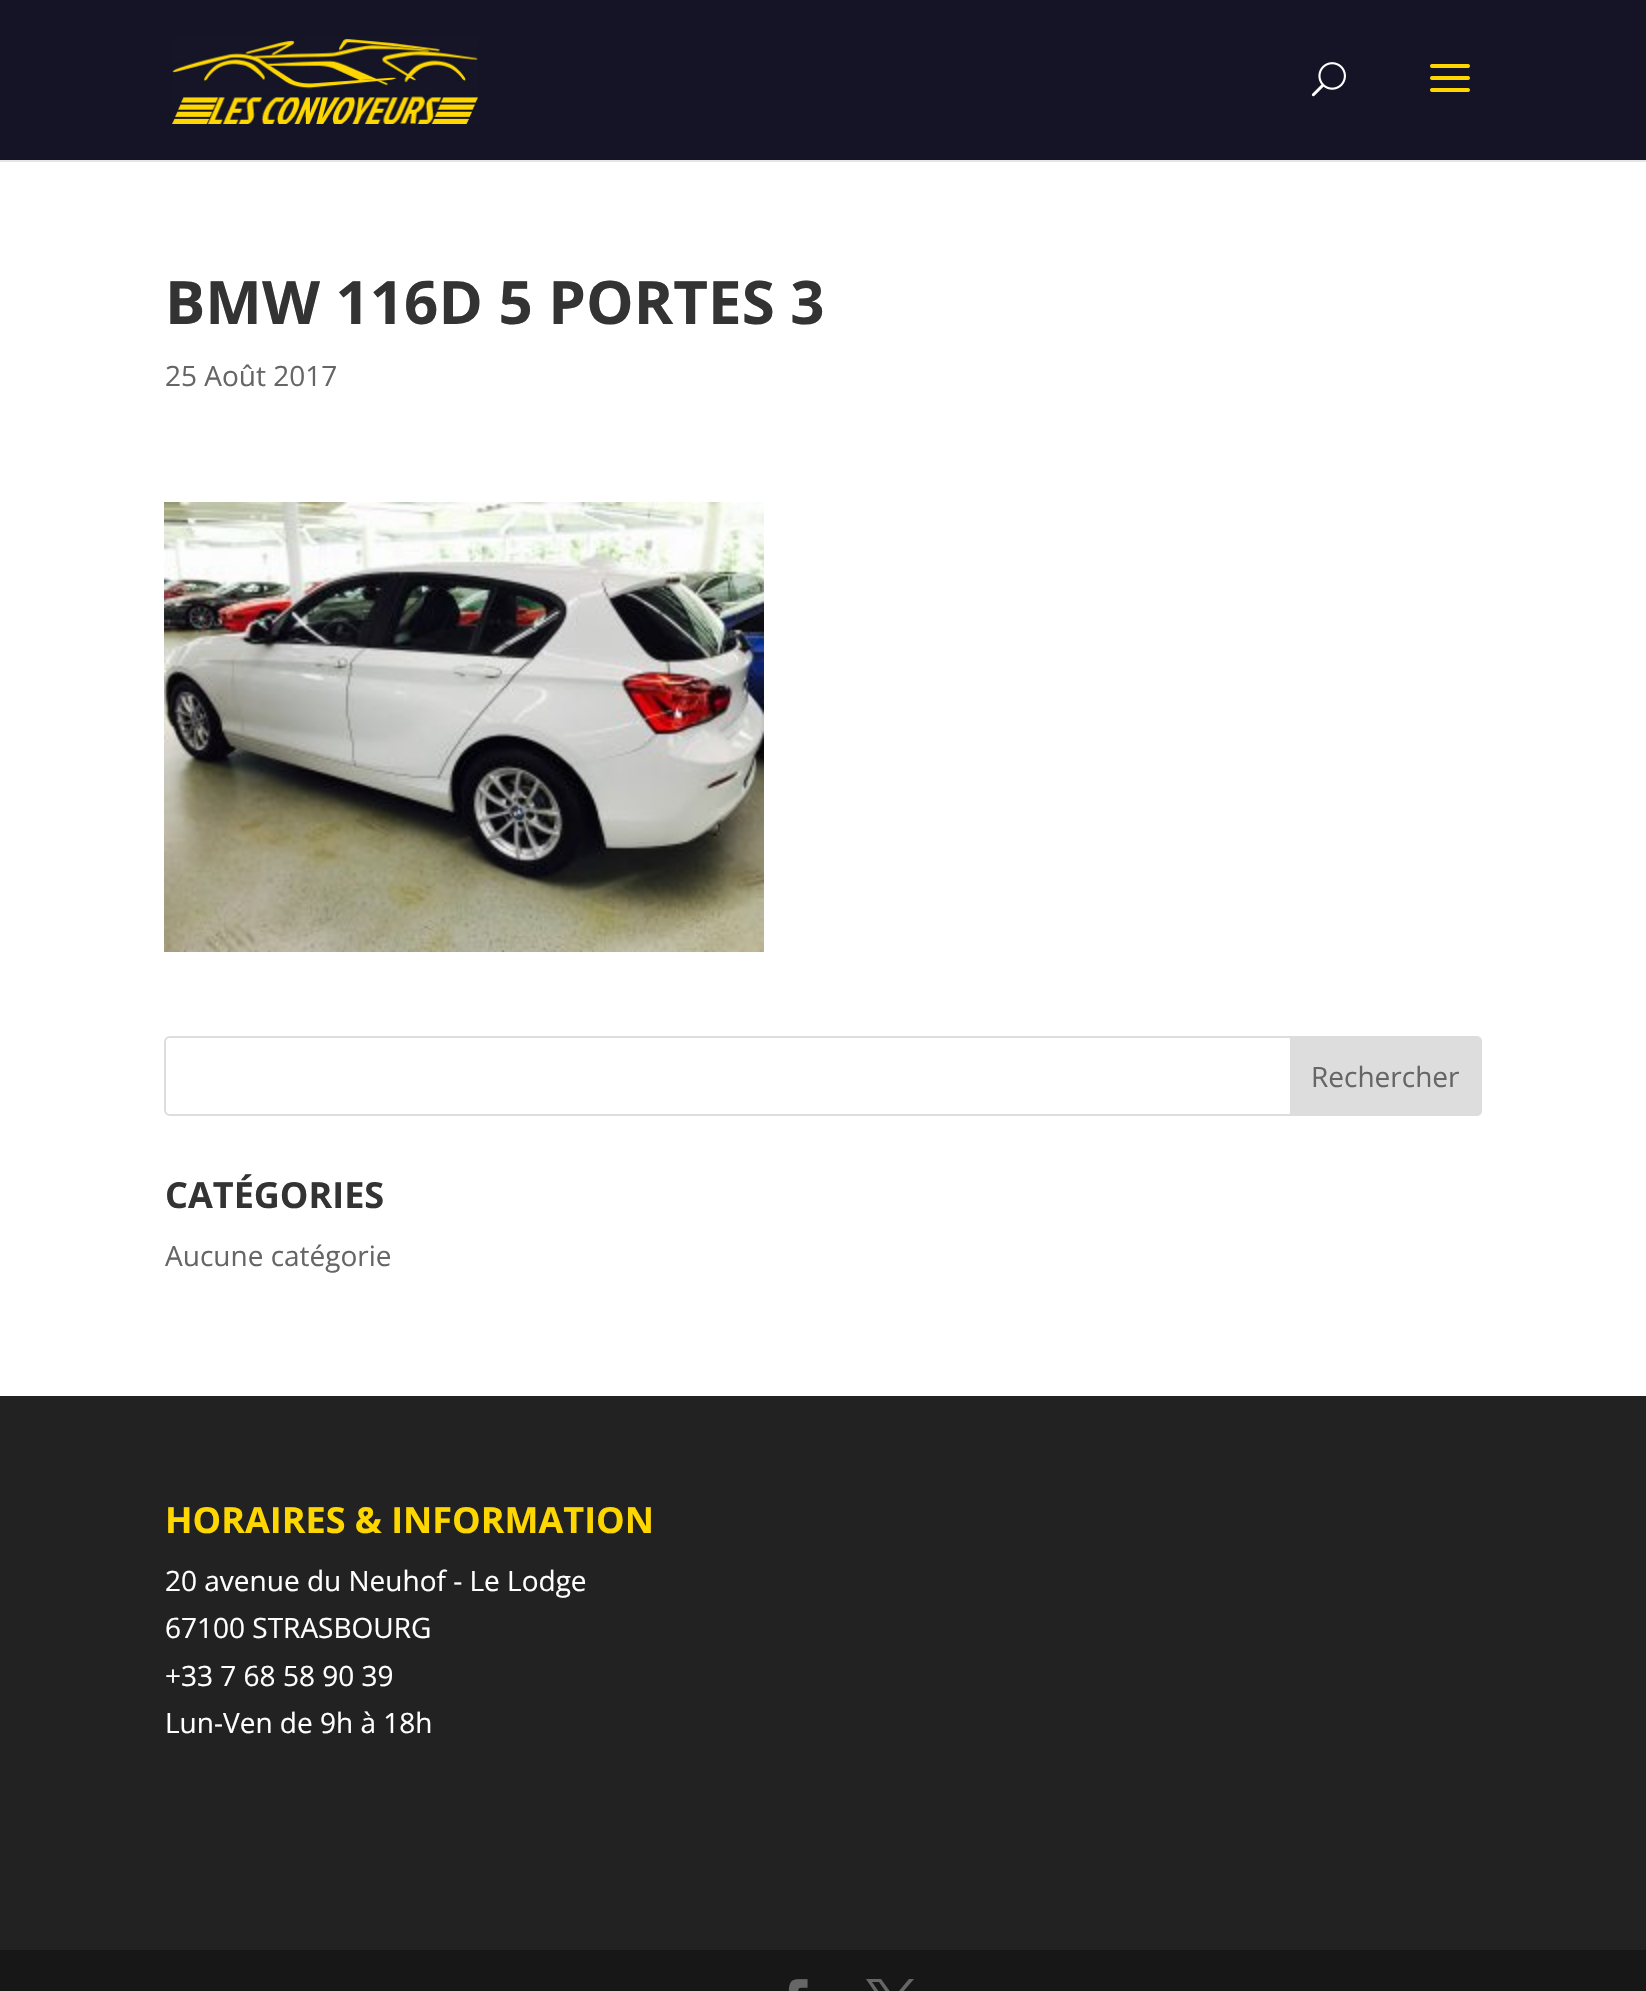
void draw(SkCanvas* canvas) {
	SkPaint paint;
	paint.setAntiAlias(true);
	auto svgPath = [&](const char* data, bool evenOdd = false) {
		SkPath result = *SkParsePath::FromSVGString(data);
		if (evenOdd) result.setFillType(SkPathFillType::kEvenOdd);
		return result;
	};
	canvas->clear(0xffffffff);
	paint.setColor(0xffe6e6e6);
	canvas->drawRect(SkRect::MakeXYWH(0, 160, 1646, 2), paint);
	paint.setColor(0xff141426);
	canvas->drawRect(SkRect::MakeXYWH(0, 0, 1646, 160), paint);
	canvas->drawImageRect(SkImages::DeferredFromEncodedData(SkData::MakeFromFileName("img1.png")), SkRect::MakeXYWH(172, 36, 306, 88), SkSamplingOptions());
	canvas->drawImageRect(SkImages::DeferredFromEncodedData(SkData::MakeFromFileName("img2.png")), SkRect::MakeXYWH(1311, 62, 35, 35), SkSamplingOptions());
	canvas->drawImageRect(SkImages::DeferredFromEncodedData(SkData::MakeFromFileName("img3.png")), SkRect::MakeXYWH(1430, 64, 40, 28), SkSamplingOptions());
	SkFont f1(fontMgr->matchFamilyStyle("Open Sans", SkFontStyle::Bold()), 60);
	f1.setSubpixel(true);
	paint.setColor(0xff333333);
	canvas->drawString("BMW 116D 5 PORTES 3", 165, 324, f1, paint);
	SkFont f2(fontMgr->matchFamilyStyle("Open Sans", SkFontStyle::Normal()), 28);
	f2.setSubpixel(true);
	paint.setColor(0xff666666);
	canvas->drawString("25 Août 2017", 165, 386, f2, paint);
	canvas->drawImageRect(SkImages::DeferredFromEncodedData(SkData::MakeFromFileName("img4.png")), SkRect::MakeXYWH(164, 502, 600, 450), SkSamplingOptions());
	paint.setStroke(true);
	paint.setStrokeWidth(2);
	paint.setColor(0xffdddddd);
	canvas->drawRoundRect(SkRect::MakeXYWH(165, 1037, 1316, 78), 5, 5, paint);
	paint.setStroke(false);
	canvas->drawPath(svgPath("M1291 1037H1476C1479 1037 1481 1039 1481 1042V1110C1481 1113 1479 1115 1476 1115H1291Z"), paint);
	paint.setStroke(true);
	canvas->drawPath(svgPath("M1291 1037H1476C1479 1037 1481 1039 1481 1042V1110C1481 1113 1479 1115 1476 1115H1291Z"), paint);
	paint.setStroke(false);
	paint.setColor(0xff666666);
	canvas->drawString("Rechercher", 1311, 1087, f2, paint);
	SkFont f3(fontMgr->matchFamilyStyle("Open Sans", SkFontStyle::Bold()), 36);
	f3.setSubpixel(true);
	paint.setColor(0xff333333);
	canvas->drawString("CATÉGORIES", 165, 1208, f3, paint);
	paint.setColor(0xff666666);
	canvas->drawString("Aucune catégorie", 165, 1266, f2, paint);
	paint.setColor(0xff222222);
	canvas->drawRect(SkRect::MakeXYWH(0, 1396, 1646, 554), paint);
	paint.setColor(0xffffd700);
	canvas->drawString("HORAIRES & INFORMATION", 165, 1533, f3, paint);
	paint.setColor(0xffffffff);
	canvas->drawString("20 avenue du Neuhof - Le Lodge", 165, 1591, f2, paint);
	canvas->drawString("67100 STRASBOURG", 165, 1638, f2, paint);
	canvas->drawString("+33 7 68 58 90 39", 165, 1686, f2, paint);
	canvas->drawString("Lun-Ven de 9h à 18h", 165, 1733, f2, paint);
	paint.setColor(0xff171717);
	canvas->drawRect(SkRect::MakeXYWH(0, 1950, 1646, 41), paint);
	canvas->drawImageRect(SkImages::DeferredFromEncodedData(SkData::MakeFromFileName("img5.png")), SkRect::MakeXYWH(788, 1979, 20, 12), SkSamplingOptions());
	paint.setColor(0xff666666);
	canvas->drawPath(svgPath("M866 1979L885 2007L866 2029H870L887 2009L901 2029H916L896 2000L914 1979H909L894 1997L881 1979ZM872 1982H879L910 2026H903Z"), paint);
}
